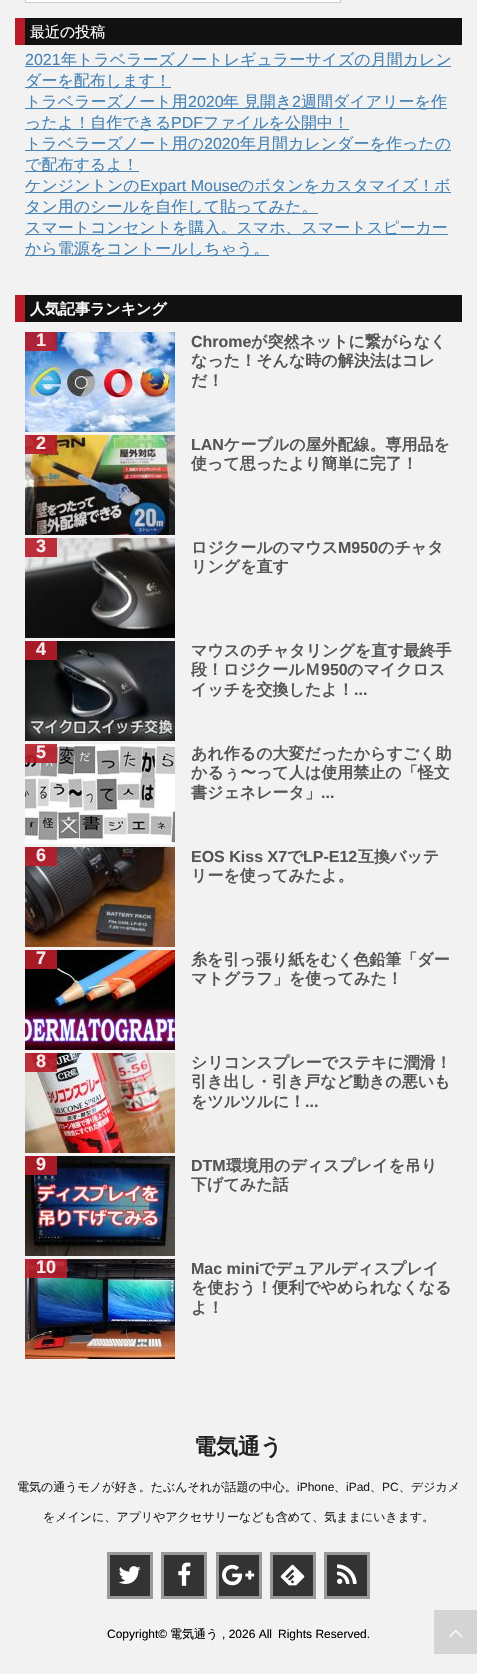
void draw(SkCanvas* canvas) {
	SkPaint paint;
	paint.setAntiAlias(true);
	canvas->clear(0xfff2f2f2);
	paint.setStroke(true);
	paint.setStrokeWidth(1);
	paint.setColor(0xffcccccc);
	canvas->drawRect(SkRect::MakeXYWH(25.5, -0.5, 315, 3), paint);
	paint.setStroke(false);
	paint.setColor(0xffffffff);
	canvas->drawRect(SkRect::MakeXYWH(26, 0, 314, 2), paint);
	paint.setColor(0xff111111);
	canvas->drawRect(SkRect::MakeXYWH(25, 18, 437, 27), paint);
	paint.setColor(0xffb91b29);
	canvas->drawRect(SkRect::MakeXYWH(15, 18, 10, 27), paint);
	SkFont f1(fontMgr->matchFamilyStyle("WenQuanYi Zen Hei", SkFontStyle(500, SkFontStyle::kNormal_Width, SkFontStyle::kUpright_Slant)), 15);
	f1.setSubpixel(true);
	paint.setColor(0xffffffff);
	canvas->drawString("最近の投稿", 30, 37, f1, paint);
	SkFont f2(fontMgr->matchFamilyStyle("Liberation Sans", SkFontStyle::Normal()), 16);
	f2.setSubpixel(true);
	paint.setColor(0xff4682b4);
	canvas->drawString("2021", 25, 65, f2, paint);
	canvas->drawRect(SkRect::MakeXYWH(25, 66, 426, 1), paint);
	SkFont f3(fontMgr->matchFamilyStyle("WenQuanYi Zen Hei", SkFontStyle(500, SkFontStyle::kNormal_Width, SkFontStyle::kUpright_Slant)), 16);
	f3.setSubpixel(true);
	canvas->drawString("年トラベラーズノートレギュラーサイズの月間カレン", 61, 65, f3, paint);
	canvas->drawRect(SkRect::MakeXYWH(25, 87, 146, 1), paint);
	canvas->drawString("ダーを配布します！", 25, 86, f3, paint);
	canvas->drawRect(SkRect::MakeXYWH(25, 108, 422, 1), paint);
	canvas->drawString("トラベラーズノート用", 25, 107, f3, paint);
	canvas->drawString("2020", 188, 107, f2, paint);
	canvas->drawString("年 見開き", 223, 107, f3, paint);
	canvas->drawString("2", 292, 107, f2, paint);
	canvas->drawString("週間ダイアリーを作", 301, 107, f3, paint);
	canvas->drawRect(SkRect::MakeXYWH(25, 129, 324, 1), paint);
	canvas->drawString("ったよ！自作できる", 25, 128, f3, paint);
	canvas->drawString("PDF", 171, 128, f2, paint);
	canvas->drawString("ファイルを公開中！", 203, 128, f3, paint);
	canvas->drawRect(SkRect::MakeXYWH(25, 150, 426, 1), paint);
	canvas->drawString("トラベラーズノート用の", 25, 149, f3, paint);
	canvas->drawString("2020", 204, 149, f2, paint);
	canvas->drawString("年月間カレンダーを作ったの", 240, 149, f3, paint);
	canvas->drawRect(SkRect::MakeXYWH(25, 171, 114, 1), paint);
	canvas->drawString("で配布するよ！", 25, 170, f3, paint);
	canvas->drawRect(SkRect::MakeXYWH(25, 192, 426, 1), paint);
	canvas->drawString("ケンジントンの", 25, 191, f3, paint);
	canvas->drawString("Expart Mouse", 140, 191, f2, paint);
	canvas->drawString("のボタンをカスタマイズ！ボ", 238, 191, f3, paint);
	canvas->drawRect(SkRect::MakeXYWH(25, 213, 293, 1), paint);
	canvas->drawString("タン用のシールを自作して貼ってみた。", 25, 212, f3, paint);
	canvas->drawRect(SkRect::MakeXYWH(25, 234, 423, 1), paint);
	canvas->drawString("スマートコンセントを購入。スマホ、スマートスピーカー", 25, 233, f3, paint);
	canvas->drawRect(SkRect::MakeXYWH(25, 255, 244, 1), paint);
	canvas->drawString("から電源をコントールしちゃう。", 25, 254, f3, paint);
	paint.setColor(0xff111111);
	canvas->drawRect(SkRect::MakeXYWH(25, 295, 437, 27), paint);
	paint.setColor(0xffb91b29);
	canvas->drawRect(SkRect::MakeXYWH(15, 295, 10, 27), paint);
	SkFont f4(fontMgr->matchFamilyStyle("WenQuanYi Zen Hei", SkFontStyle::Bold()), 15);
	f4.setSubpixel(true);
	paint.setColor(0xffffffff);
	canvas->drawString("人気記事ランキング", 30, 314, f4, paint);
	canvas->drawImageRect(SkImages::DeferredFromEncodedData(SkData::MakeFromFileName("img1.png")), SkRect::MakeXYWH(25, 332, 150, 100), SkSamplingOptions());
	paint.setColor(0xe6b91b29);
	canvas->drawRect(SkRect::MakeXYWH(25, 332, 32, 19), paint);
	SkFont f5(fontMgr->matchFamilyStyle("Liberation Sans", SkFontStyle::Bold()), 18);
	f5.setSubpixel(true);
	paint.setColor(0xfff7e9eb);
	canvas->drawString("1", 36, 346, f5, paint);
	SkFont f6(fontMgr->matchFamilyStyle("Liberation Sans", SkFontStyle::Bold()), 16);
	f6.setSubpixel(true);
	paint.setColor(0xff555555);
	canvas->drawString("Chrome", 191, 347, f6, paint);
	SkFont f7(fontMgr->matchFamilyStyle("WenQuanYi Zen Hei", SkFontStyle::Bold()), 16);
	f7.setSubpixel(true);
	canvas->drawString("が突然ネットに繋がらなく", 251, 347, f7, paint);
	canvas->drawString("なった！そんな時の解決法はコレ", 191, 366, f7, paint);
	canvas->drawString("だ！", 191, 386, f7, paint);
	canvas->drawImageRect(SkImages::DeferredFromEncodedData(SkData::MakeFromFileName("img2.png")), SkRect::MakeXYWH(25, 435, 150, 100), SkSamplingOptions());
	paint.setColor(0xe6b91b29);
	canvas->drawRect(SkRect::MakeXYWH(25, 435, 32, 19), paint);
	paint.setColor(0xfff7e9eb);
	canvas->drawString("2", 36, 449, f5, paint);
	paint.setColor(0xff555555);
	canvas->drawString("LAN", 191, 450, f6, paint);
	canvas->drawString("ケーブルの屋外配線。専用品を", 224, 450, f7, paint);
	canvas->drawString("使って思ったより簡単に完了！", 191, 469, f7, paint);
	canvas->drawImageRect(SkImages::DeferredFromEncodedData(SkData::MakeFromFileName("img3.png")), SkRect::MakeXYWH(25, 538, 150, 100), SkSamplingOptions());
	paint.setColor(0xe6b91b29);
	canvas->drawRect(SkRect::MakeXYWH(25, 538, 32, 19), paint);
	paint.setColor(0xfff7e9eb);
	canvas->drawString("3", 36, 552, f5, paint);
	paint.setColor(0xff555555);
	canvas->drawString("ロジクールのマウス", 191, 553, f7, paint);
	canvas->drawString("M950", 338, 553, f6, paint);
	canvas->drawString("のチャタ", 378, 553, f7, paint);
	canvas->drawString("リングを直す", 191, 572, f7, paint);
	canvas->drawImageRect(SkImages::DeferredFromEncodedData(SkData::MakeFromFileName("img4.png")), SkRect::MakeXYWH(25, 641, 150, 100), SkSamplingOptions());
	paint.setColor(0xe6b91b29);
	canvas->drawRect(SkRect::MakeXYWH(25, 641, 32, 19), paint);
	paint.setColor(0xfff7e9eb);
	canvas->drawString("4", 36, 655, f5, paint);
	paint.setColor(0xff555555);
	canvas->drawString("マウスのチャタリングを直す最終手", 191, 656, f7, paint);
	canvas->drawString("段！ロジクールＭ", 191, 675, f7, paint);
	canvas->drawString("950", 321, 675, f6, paint);
	canvas->drawString("のマイクロス", 347, 675, f7, paint);
	canvas->drawString("イッチを交換したよ！", 191, 695, f7, paint);
	canvas->drawString("...", 354, 695, f6, paint);
	canvas->drawImageRect(SkImages::DeferredFromEncodedData(SkData::MakeFromFileName("img5.png")), SkRect::MakeXYWH(25, 744, 150, 100), SkSamplingOptions());
	paint.setColor(0xe6b91b29);
	canvas->drawRect(SkRect::MakeXYWH(25, 744, 32, 19), paint);
	paint.setColor(0xfff7e9eb);
	canvas->drawString("5", 36, 758, f5, paint);
	paint.setColor(0xff555555);
	canvas->drawString("あれ作るの大変だったからすごく助", 191, 759, f7, paint);
	canvas->drawString("かるぅ〜って人は使用禁止の「怪文", 191, 778, f7, paint);
	canvas->drawString("書ジェネレータ」", 191, 798, f7, paint);
	canvas->drawString("...", 321, 798, f6, paint);
	canvas->drawImageRect(SkImages::DeferredFromEncodedData(SkData::MakeFromFileName("img6.png")), SkRect::MakeXYWH(25, 847, 150, 100), SkSamplingOptions());
	paint.setColor(0xe6b91b29);
	canvas->drawRect(SkRect::MakeXYWH(25, 847, 32, 19), paint);
	paint.setColor(0xfff7e9eb);
	canvas->drawString("6", 36, 861, f5, paint);
	paint.setColor(0xff555555);
	canvas->drawString("EOS Kiss X7", 191, 862, f6, paint);
	canvas->drawString("で", 287, 862, f7, paint);
	canvas->drawString("LP-E12", 303, 862, f6, paint);
	canvas->drawString("互換バッテ", 358, 862, f7, paint);
	canvas->drawString("リーを使ってみたよ。", 191, 881, f7, paint);
	canvas->drawImageRect(SkImages::DeferredFromEncodedData(SkData::MakeFromFileName("img7.png")), SkRect::MakeXYWH(25, 950, 150, 100), SkSamplingOptions());
	paint.setColor(0xe6b91b29);
	canvas->drawRect(SkRect::MakeXYWH(25, 950, 32, 19), paint);
	paint.setColor(0xfff7e9eb);
	canvas->drawString("7", 36, 964, f5, paint);
	paint.setColor(0xff555555);
	canvas->drawString("糸を引っ張り紙をむく色鉛筆「ダー", 191, 965, f7, paint);
	canvas->drawString("マトグラフ」を使ってみた！", 191, 984, f7, paint);
	canvas->drawImageRect(SkImages::DeferredFromEncodedData(SkData::MakeFromFileName("img8.png")), SkRect::MakeXYWH(25, 1053, 150, 100), SkSamplingOptions());
	paint.setColor(0xe6b91b29);
	canvas->drawRect(SkRect::MakeXYWH(25, 1053, 32, 19), paint);
	paint.setColor(0xfff7e9eb);
	canvas->drawString("8", 36, 1067, f5, paint);
	paint.setColor(0xff555555);
	canvas->drawString("シリコンスプレーでステキに潤滑！", 191, 1068, f7, paint);
	canvas->drawString("引き出し・引き戸など動きの悪いも", 191, 1087, f7, paint);
	canvas->drawString("をツルツルに！", 191, 1107, f7, paint);
	canvas->drawString("...", 305, 1107, f6, paint);
	canvas->drawImageRect(SkImages::DeferredFromEncodedData(SkData::MakeFromFileName("img9.png")), SkRect::MakeXYWH(25, 1156, 150, 100), SkSamplingOptions());
	paint.setColor(0xe6b91b29);
	canvas->drawRect(SkRect::MakeXYWH(25, 1156, 32, 19), paint);
	paint.setColor(0xfff7e9eb);
	canvas->drawString("9", 36, 1170, f5, paint);
	paint.setColor(0xff555555);
	canvas->drawString("DTM", 191, 1171, f6, paint);
	canvas->drawString("環境用のディスプレイを吊り", 226, 1171, f7, paint);
	canvas->drawString("下げてみた話", 191, 1190, f7, paint);
	canvas->drawImageRect(SkImages::DeferredFromEncodedData(SkData::MakeFromFileName("img10.png")), SkRect::MakeXYWH(25, 1259, 150, 100), SkSamplingOptions());
	paint.setColor(0xe6b91b29);
	canvas->drawRect(SkRect::MakeXYWH(25, 1259, 42, 19), paint);
	paint.setColor(0xfff7e9eb);
	canvas->drawString("10", 36, 1273, f5, paint);
	paint.setColor(0xff555555);
	canvas->drawString("Mac mini", 191, 1274, f6, paint);
	canvas->drawString("でデュアルディスプレイ", 259, 1274, f7, paint);
	canvas->drawString("を使おう！便利でやめられなくなる", 191, 1293, f7, paint);
	canvas->drawString("よ！", 191, 1313, f7, paint);
	SkFont f8(fontMgr->matchFamilyStyle("WenQuanYi Zen Hei", SkFontStyle::Bold()), 22);
	f8.setSubpixel(true);
	paint.setColor(0xff212121);
	canvas->drawString("電気通う", 194, 1454, f8, paint);
	SkFont f9(fontMgr->matchFamilyStyle("WenQuanYi Zen Hei", SkFontStyle(500, SkFontStyle::kNormal_Width, SkFontStyle::kUpright_Slant)), 12);
	f9.setSubpixel(true);
	canvas->drawString("電気の通うモノが好き。たぶんそれが話題の中心。", 17, 1491, f9, paint);
	SkFont f10(fontMgr->matchFamilyStyle("Liberation Sans", SkFontStyle::Normal()), 12);
	f10.setSubpixel(true);
	canvas->drawString("iPhone", 297, 1491, f10, paint);
	canvas->drawString("、", 334, 1491, f9, paint);
	canvas->drawString("iPad", 346, 1491, f10, paint);
	canvas->drawString("、", 370, 1491, f9, paint);
	canvas->drawString("PC", 382, 1491, f10, paint);
	canvas->drawString("、デジカメ", 399, 1491, f9, paint);
	canvas->drawString("をメインに、アプリやアクセサリーなども含めて、気ままにいきます。", 43, 1521, f9, paint);
	paint.setColor(0xff333333);
	canvas->drawRect(SkRect::MakeXYWH(108.5, 1553.5, 43, 44), paint);
	paint.setStroke(true);
	paint.setStrokeWidth(3);
	paint.setColor(0xff999999);
	canvas->drawRect(SkRect::MakeXYWH(108.5, 1553.5, 43, 44), paint);
	canvas->drawImageRect(SkImages::DeferredFromEncodedData(SkData::MakeFromFileName("img11.png")), SkRect::MakeXYWH(118, 1566, 23, 18), SkSamplingOptions());
	paint.setStroke(false);
	paint.setColor(0xff333333);
	canvas->drawRect(SkRect::MakeXYWH(162.5, 1553.5, 43, 44), paint);
	paint.setStroke(true);
	paint.setColor(0xff999999);
	canvas->drawRect(SkRect::MakeXYWH(162.5, 1553.5, 43, 44), paint);
	canvas->drawImageRect(SkImages::DeferredFromEncodedData(SkData::MakeFromFileName("img12.png")), SkRect::MakeXYWH(178, 1562, 13, 24), SkSamplingOptions());
	paint.setStroke(false);
	paint.setColor(0xff333333);
	canvas->drawRect(SkRect::MakeXYWH(217.5, 1553.5, 43, 44), paint);
	paint.setStroke(true);
	paint.setColor(0xff999999);
	canvas->drawRect(SkRect::MakeXYWH(217.5, 1553.5, 43, 44), paint);
	canvas->drawImageRect(SkImages::DeferredFromEncodedData(SkData::MakeFromFileName("img13.png")), SkRect::MakeXYWH(222, 1564, 33, 22), SkSamplingOptions());
	paint.setStroke(false);
	paint.setColor(0xff333333);
	canvas->drawRect(SkRect::MakeXYWH(271.5, 1553.5, 43, 44), paint);
	paint.setStroke(true);
	paint.setColor(0xff999999);
	canvas->drawRect(SkRect::MakeXYWH(271.5, 1553.5, 43, 44), paint);
	canvas->drawImageRect(SkImages::DeferredFromEncodedData(SkData::MakeFromFileName("img14.png")), SkRect::MakeXYWH(280, 1564, 25, 22), SkSamplingOptions());
	paint.setStroke(false);
	paint.setColor(0xff333333);
	canvas->drawRect(SkRect::MakeXYWH(325.5, 1553.5, 43, 44), paint);
	paint.setStroke(true);
	paint.setColor(0xff999999);
	canvas->drawRect(SkRect::MakeXYWH(325.5, 1553.5, 43, 44), paint);
	canvas->drawImageRect(SkImages::DeferredFromEncodedData(SkData::MakeFromFileName("img15.png")), SkRect::MakeXYWH(337, 1564, 20, 20), SkSamplingOptions());
	paint.setStroke(false);
	paint.setColor(0xff000000);
	canvas->drawString("Copyright©", 107, 1638, f10, paint);
	canvas->drawString("電気通う", 170, 1638, f9, paint);
	canvas->drawString(", 2026 All Rights Reserved.", 222, 1638, f10, paint);
	paint.setColor(0xffd4d4d4);
	canvas->drawRect(SkRect::MakeXYWH(434, 1610, 43, 44), paint);
	canvas->drawImageRect(SkImages::DeferredFromEncodedData(SkData::MakeFromFileName("img16.png")), SkRect::MakeXYWH(449, 1629, 14, 9), SkSamplingOptions());
}
